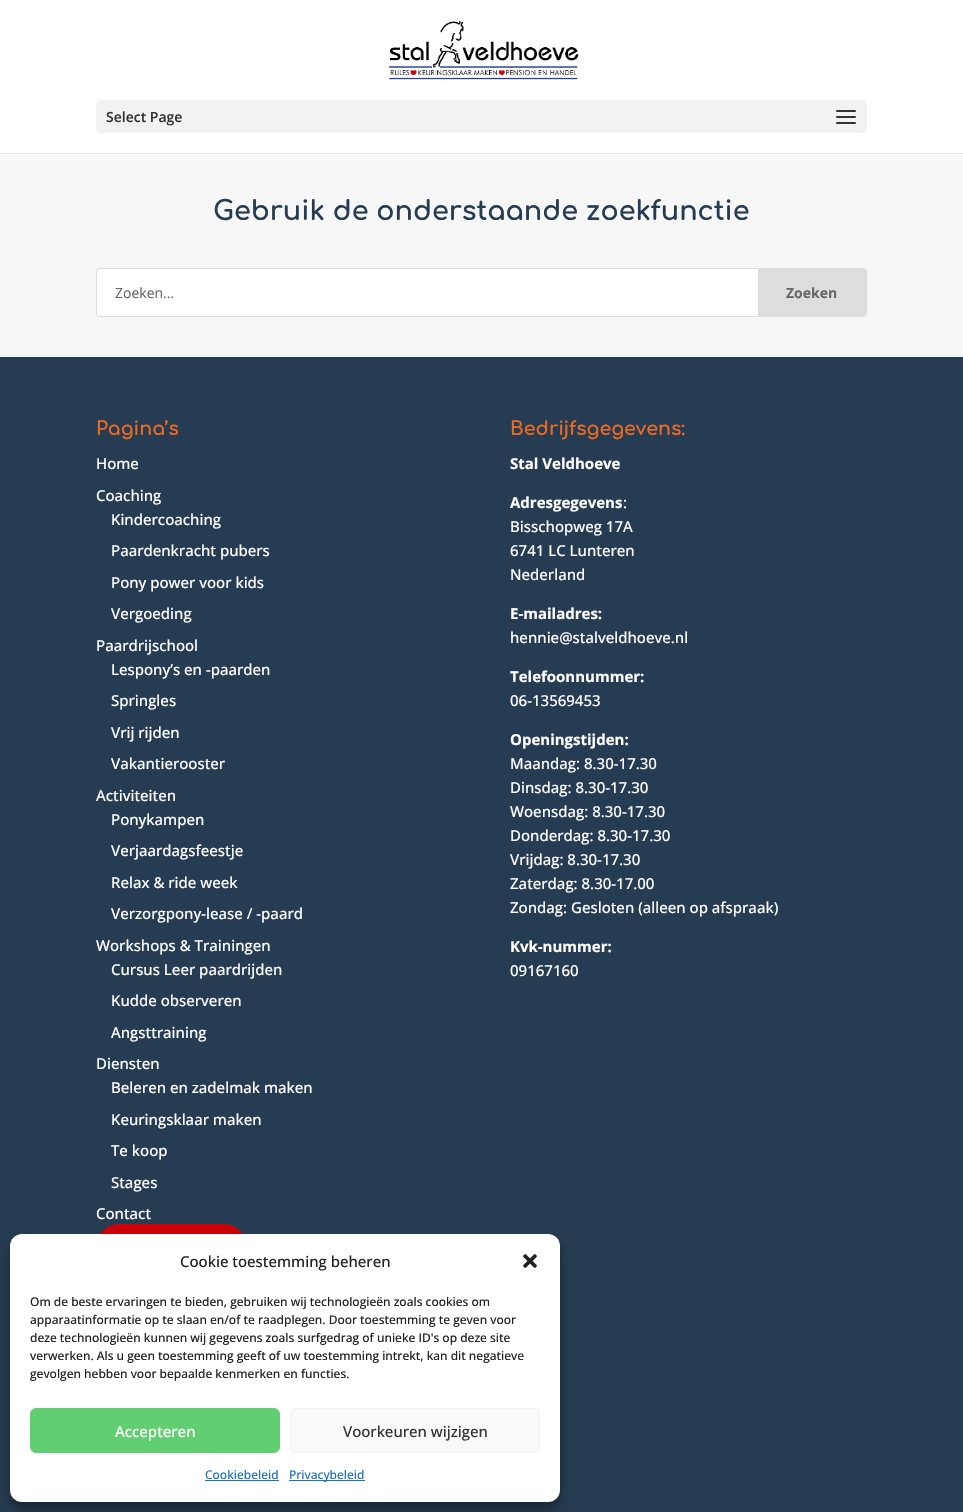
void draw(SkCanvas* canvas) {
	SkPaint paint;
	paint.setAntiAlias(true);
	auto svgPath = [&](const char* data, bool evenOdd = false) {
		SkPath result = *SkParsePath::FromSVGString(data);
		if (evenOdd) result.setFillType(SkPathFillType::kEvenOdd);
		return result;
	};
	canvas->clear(0xffffffff);
	paint.setColor(0xffe6e6e6);
	canvas->drawRect(SkRect::MakeXYWH(0, 153, 963, 1), paint);
	canvas->drawImageRect(SkImages::DeferredFromEncodedData(SkData::MakeFromFileName("img1.png")), SkRect::MakeXYWH(389, 20, 190, 60), SkSamplingOptions());
	paint.setColor(0xfff2f2f2);
	canvas->drawRoundRect(SkRect::MakeXYWH(96, 100, 771, 33), 5, 5, paint);
	SkFont f1(fontMgr->matchFamilyStyle("Open Sans", SkFontStyle(600, SkFontStyle::kNormal_Width, SkFontStyle::kUpright_Slant)), 14);
	f1.setSubpixel(true);
	paint.setColor(0xff333333);
	canvas->drawString("Select Page", 106, 122, f1, paint);
	canvas->drawImageRect(SkImages::DeferredFromEncodedData(SkData::MakeFromFileName("img2.png")), SkRect::MakeXYWH(836, 110, 20, 14), SkSamplingOptions());
	paint.setColor(0xfff7f7f7);
	canvas->drawRect(SkRect::MakeXYWH(0, 155, 963, 202), paint);
	SkFont f2(fontMgr->matchFamilyStyle("Comfortaa", SkFontStyle::Bold()), 27);
	f2.setSubpixel(true);
	paint.setColor(0xff263c52);
	canvas->drawString("Gebruik de onderstaande zoekfunctie", 213, 220, f2, paint);
	paint.setStroke(true);
	paint.setStrokeWidth(1);
	paint.setColor(0xffdddddd);
	canvas->drawRoundRect(SkRect::MakeXYWH(96.5, 268.5, 770, 48), 2.5, 2.5, paint);
	paint.setStroke(false);
	paint.setColor(0xffffffff);
	canvas->drawPath(svgPath("M99 269H758V316H99C98 316 97 315 97 314V271C97 270 98 269 99 269Z"), paint);
	SkFont f3(fontMgr->matchFamilyStyle("Open Sans", SkFontStyle::Normal()), 14);
	f3.setSubpixel(true);
	paint.setColor(0xff666666);
	canvas->drawString("Zoeken...", 115, 298, f3, paint);
	paint.setColor(0xffdddddd);
	canvas->drawPath(svgPath("M758 269H864C865 269 866 270 866 271V314C866 315 865 316 864 316H758Z"), paint);
	SkFont f4(fontMgr->matchFamilyStyle("Open Sans", SkFontStyle::Bold()), 14);
	f4.setSubpixel(true);
	paint.setColor(0xff666666);
	canvas->drawString("Zoeken", 786, 298, f4, paint);
	paint.setColor(0xff263c52);
	canvas->drawRect(SkRect::MakeXYWH(0, 357, 963, 1155), paint);
	SkFont f5(fontMgr->matchFamilyStyle("Comfortaa", SkFontStyle::Bold()), 19);
	f5.setSubpixel(true);
	paint.setColor(0xffeb6b22);
	canvas->drawString("Pagina’s", 96, 435, f5, paint);
	SkFont f6(fontMgr->matchFamilyStyle("Open Sans", SkFontStyle(500, SkFontStyle::kNormal_Width, SkFontStyle::kUpright_Slant)), 15);
	f6.setSubpixel(true);
	paint.setColor(0xffffffff);
	canvas->drawString("Home", 96, 469, f6, paint);
	canvas->drawString("Coaching", 96, 501, f6, paint);
	canvas->drawString("Kindercoaching", 111, 525, f6, paint);
	canvas->drawString("Paardenkracht pubers", 111, 556, f6, paint);
	canvas->drawString("Pony power voor kids", 111, 588, f6, paint);
	canvas->drawString("Vergoeding", 111, 619, f6, paint);
	canvas->drawString("Paardrijschool", 96, 651, f6, paint);
	canvas->drawString("Lespony’s en -paarden", 111, 675, f6, paint);
	canvas->drawString("Springles", 111, 706, f6, paint);
	canvas->drawString("Vrij rijden", 111, 738, f6, paint);
	canvas->drawString("Vakantierooster", 111, 769, f6, paint);
	canvas->drawString("Activiteiten", 96, 801, f6, paint);
	canvas->drawString("Ponykampen", 111, 825, f6, paint);
	canvas->drawString("Verjaardagsfeestje", 111, 856, f6, paint);
	canvas->drawString("Relax & ride week", 111, 888, f6, paint);
	canvas->drawString("Verzorgpony-lease / -paard", 111, 919, f6, paint);
	canvas->drawString("Workshops & Trainingen", 96, 951, f6, paint);
	canvas->drawString("Cursus Leer paardrijden", 111, 975, f6, paint);
	canvas->drawString("Kudde observeren", 111, 1006, f6, paint);
	canvas->drawString("Angsttraining", 111, 1038, f6, paint);
	canvas->drawString("Diensten", 96, 1069, f6, paint);
	canvas->drawString("Beleren en zadelmak maken", 111, 1093, f6, paint);
	canvas->drawString("Keuringsklaar maken", 111, 1125, f6, paint);
	canvas->drawString("Te koop", 111, 1156, f6, paint);
	canvas->drawString("Stages", 111, 1188, f6, paint);
	canvas->drawString("Contact", 96, 1219, f6, paint);
	paint.setColor(0xffcf0008);
	canvas->drawRoundRect(SkRect::MakeXYWH(99, 1227, 145, 41), 20.5, 20.5, paint);
	paint.setStroke(true);
	paint.setStrokeWidth(6);
	canvas->drawRoundRect(SkRect::MakeXYWH(99, 1227, 145, 41), 20.5, 20.5, paint);
	paint.setStroke(false);
	paint.setColor(0xffeb6b22);
	canvas->drawString("Bedrijfsgegevens:", 510, 435, f5, paint);
	SkFont f7(fontMgr->matchFamilyStyle("Open Sans", SkFontStyle::Bold()), 15);
	f7.setSubpixel(true);
	paint.setColor(0xffffffff);
	canvas->drawString("Stal Veldhoeve", 510, 469, f7, paint);
	canvas->drawString("Adresgegevens", 510, 508, f7, paint);
	canvas->drawString(":", 623, 508, f6, paint);
	canvas->drawString("Bisschopweg 17A", 510, 532, f6, paint);
	canvas->drawString("6741 LC Lunteren", 510, 556, f6, paint);
	canvas->drawString("Nederland", 510, 580, f6, paint);
	canvas->drawString("E-mailadres:", 510, 619, f7, paint);
	canvas->drawString("hennie@stalveldhoeve.nl", 510, 643, f6, paint);
	canvas->drawString("Telefoonnummer:", 510, 682, f7, paint);
	canvas->drawString("06-13569453", 510, 706, f6, paint);
	canvas->drawString("Openingstijden:", 510, 745, f7, paint);
	canvas->drawString("Maandag: 8.30-17.30", 510, 769, f6, paint);
	canvas->drawString("Dinsdag: 8.30-17.30", 510, 793, f6, paint);
	canvas->drawString("Woensdag: 8.30-17.30", 510, 817, f6, paint);
	canvas->drawString("Donderdag: 8.30-17.30", 510, 841, f6, paint);
	canvas->drawString("Vrijdag: 8.30-17.30", 510, 865, f6, paint);
	canvas->drawString("Zaterdag: 8.30-17.00", 510, 889, f6, paint);
	canvas->drawString("Zondag: Gesloten (alleen op afspraak)", 510, 913, f6, paint);
	canvas->drawString("Kvk-nummer:", 510, 952, f7, paint);
	canvas->drawString("09167160", 510, 976, f6, paint);
	paint.setColor(0x3b000000);
	paint.setMaskFilter(SkMaskFilter::MakeBlur(kNormal_SkBlurStyle, 3));
	canvas->drawRoundRect(SkRect::MakeXYWH(10, 1240, 550, 268), 12, 12, paint);
	paint.setMaskFilter(nullptr);
	paint.setColor(0x30000000);
	paint.setMaskFilter(SkMaskFilter::MakeBlur(kNormal_SkBlurStyle, 10));
	canvas->drawRoundRect(SkRect::MakeXYWH(10, 1244, 550, 268), 12, 12, paint);
	paint.setMaskFilter(nullptr);
	paint.setColor(0xffffffff);
	canvas->drawRoundRect(SkRect::MakeXYWH(10, 1234, 550, 268), 12, 12, paint);
	paint.setColor(0xff222222);
	canvas->drawString("Cookie toestemming beheren", 180, 1267, f6, paint);
	canvas->drawImageRect(SkImages::DeferredFromEncodedData(SkData::MakeFromFileName("img3.png")), SkRect::MakeXYWH(523, 1254, 14, 14), SkSamplingOptions());
	SkFont f8(fontMgr->matchFamilyStyle("Open Sans", SkFontStyle(500, SkFontStyle::kNormal_Width, SkFontStyle::kUpright_Slant)), 12);
	f8.setSubpixel(true);
	canvas->drawString("Om de beste ervaringen te bieden, gebruiken wij technologieën zoals cookies om", 30, 1306, f8, paint);
	canvas->drawString("apparaatinformatie op te slaan en/of te raadplegen. Door toestemming te geven voor", 30, 1324, f8, paint);
	canvas->drawString("deze technologieën kunnen wij gegevens zoals surfgedrag of unieke ID's op deze site", 30, 1342, f8, paint);
	canvas->drawString("verwerken. Als u geen toestemming geeft of uw toestemming intrekt, kan dit negatieve", 30, 1360, f8, paint);
	canvas->drawString("gevolgen hebben voor bepaalde kenmerken en functies.", 30, 1378, f8, paint);
	paint.setColor(0xff61ce71);
	canvas->drawRoundRect(SkRect::MakeXYWH(30.5, 1408.5, 249, 44), 5.5, 5.5, paint);
	paint.setStroke(true);
	paint.setStrokeWidth(1);
	canvas->drawRoundRect(SkRect::MakeXYWH(30.5, 1408.5, 249, 44), 5.5, 5.5, paint);
	paint.setStroke(false);
	paint.setColor(0xffffffff);
	canvas->drawString("Accepteren", 115, 1437, f6, paint);
	paint.setColor(0xfff9f9f9);
	canvas->drawRoundRect(SkRect::MakeXYWH(290.5, 1408.5, 249, 44), 5.5, 5.5, paint);
	paint.setStroke(true);
	paint.setColor(0xfff2f2f2);
	canvas->drawRoundRect(SkRect::MakeXYWH(290.5, 1408.5, 249, 44), 5.5, 5.5, paint);
	paint.setStroke(false);
	paint.setColor(0xff333333);
	canvas->drawString("Voorkeuren wijzigen", 343, 1437, f6, paint);
	paint.setColor(0xff1e73be);
	canvas->drawString("Cookiebeleid", 205, 1479, f8, paint);
	canvas->drawRect(SkRect::MakeXYWH(205, 1480, 74, 1), paint);
	canvas->drawRect(SkRect::MakeXYWH(289, 1480, 76, 1), paint);
	canvas->drawString("Privacybeleid", 289, 1479, f8, paint);
}
